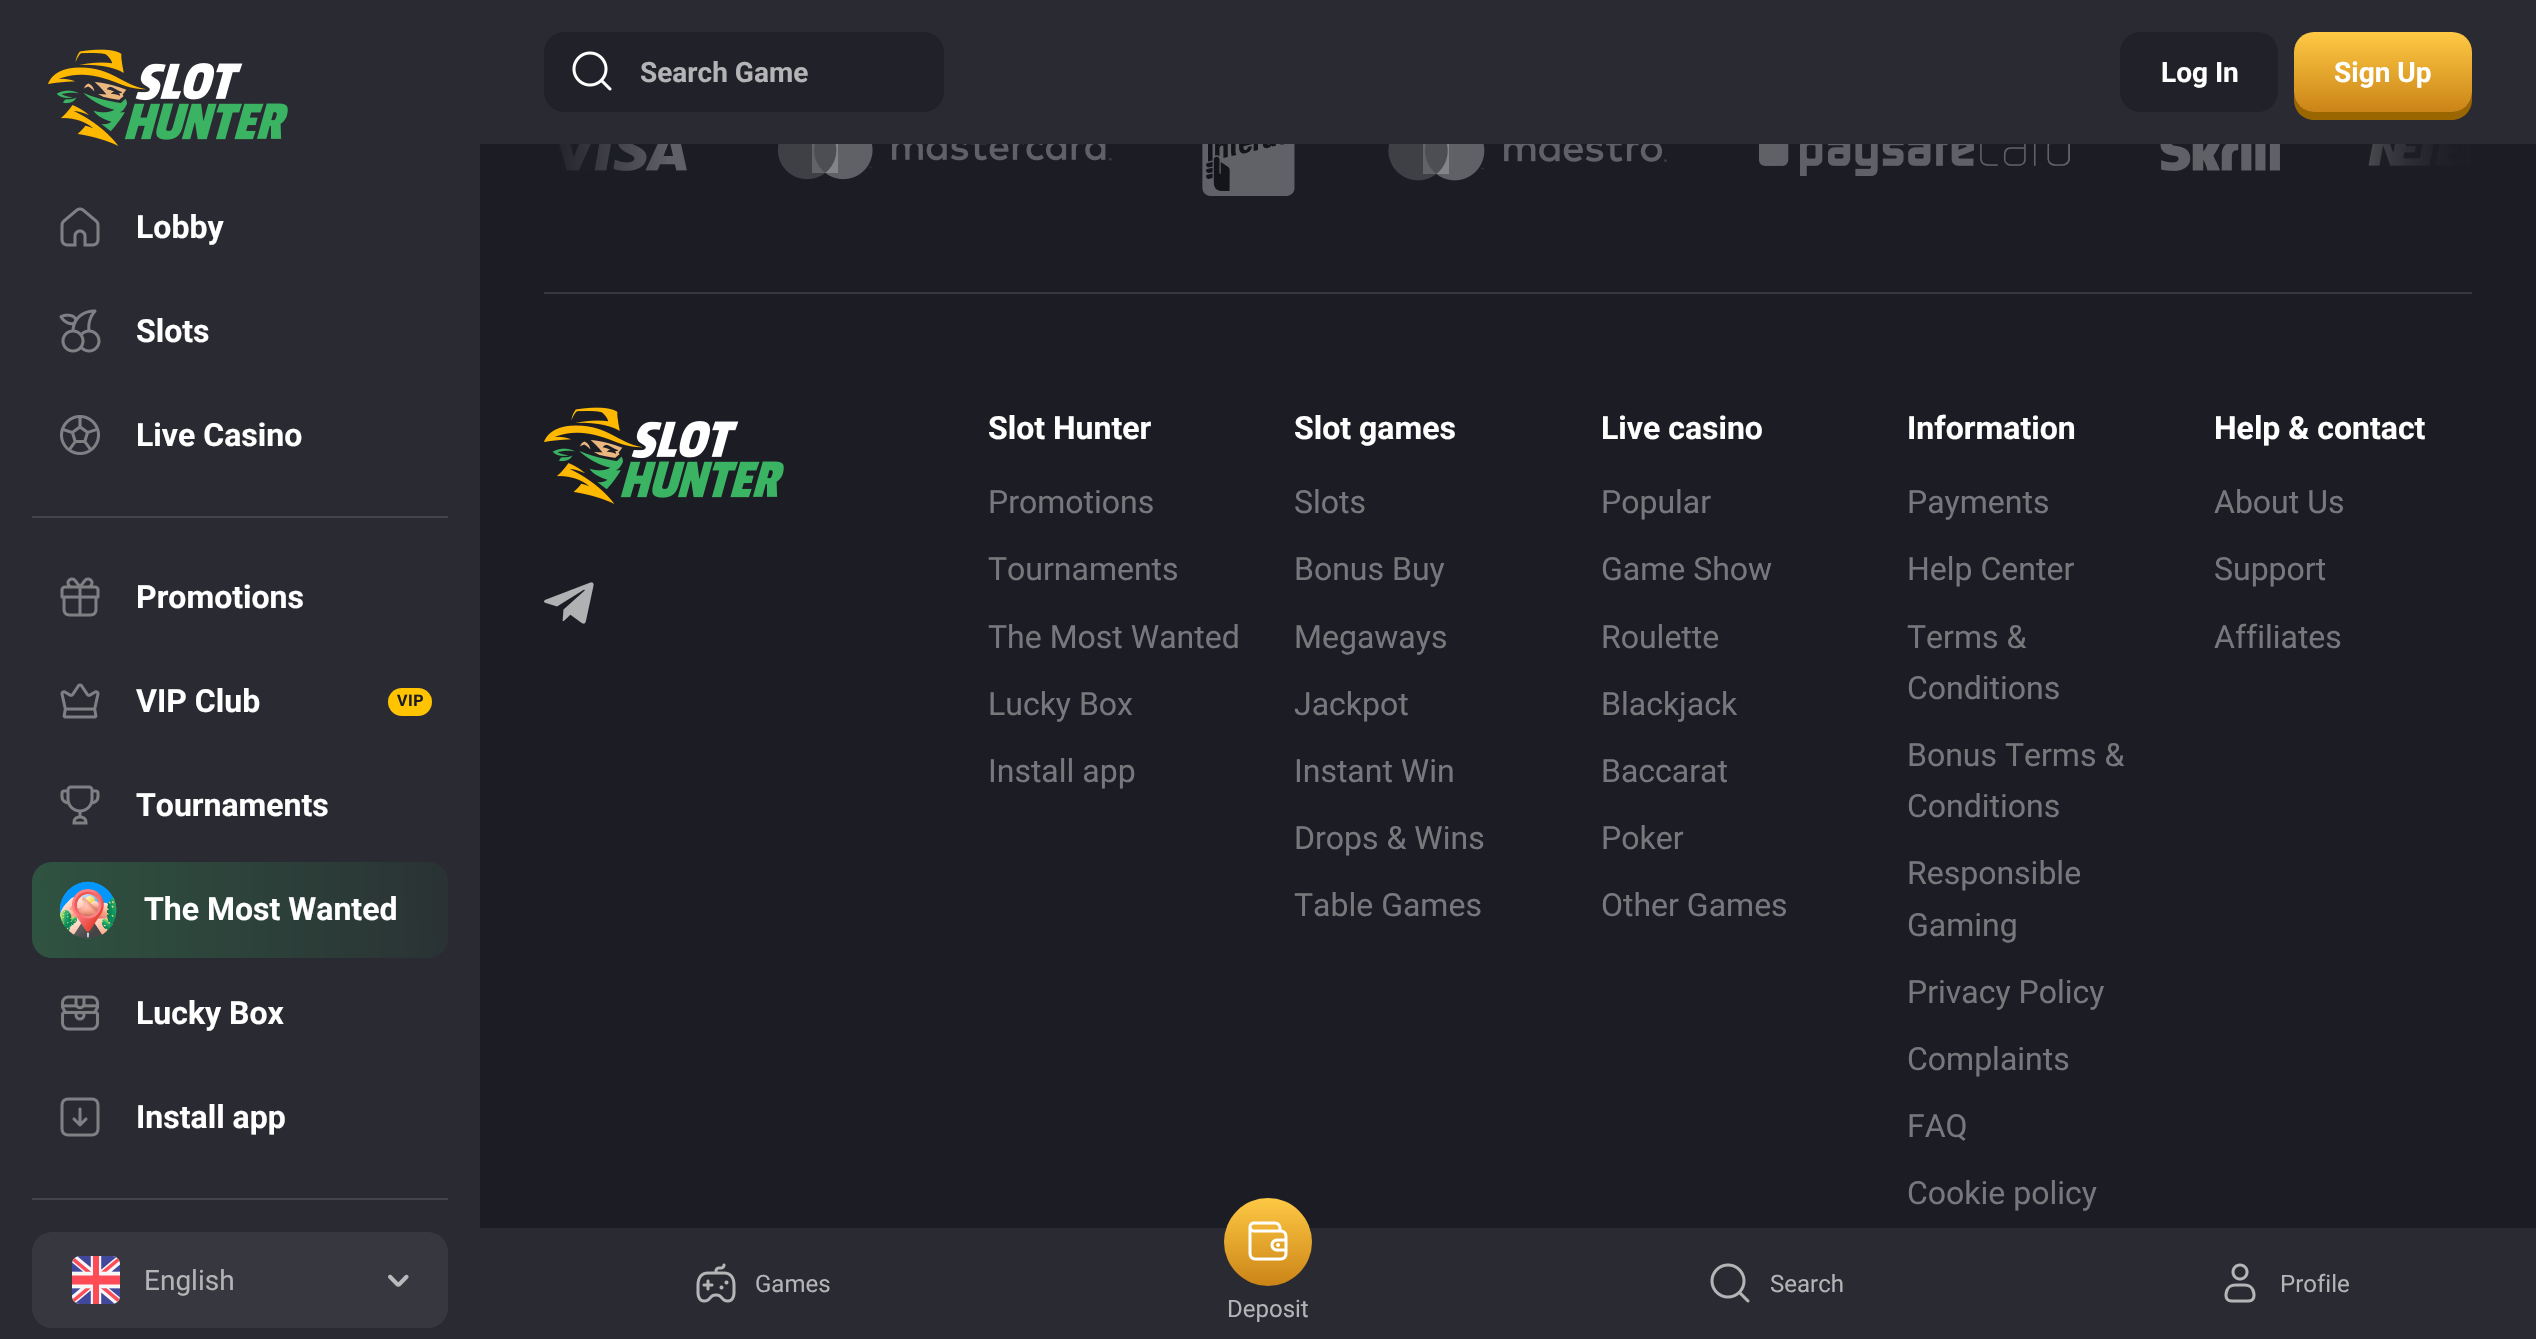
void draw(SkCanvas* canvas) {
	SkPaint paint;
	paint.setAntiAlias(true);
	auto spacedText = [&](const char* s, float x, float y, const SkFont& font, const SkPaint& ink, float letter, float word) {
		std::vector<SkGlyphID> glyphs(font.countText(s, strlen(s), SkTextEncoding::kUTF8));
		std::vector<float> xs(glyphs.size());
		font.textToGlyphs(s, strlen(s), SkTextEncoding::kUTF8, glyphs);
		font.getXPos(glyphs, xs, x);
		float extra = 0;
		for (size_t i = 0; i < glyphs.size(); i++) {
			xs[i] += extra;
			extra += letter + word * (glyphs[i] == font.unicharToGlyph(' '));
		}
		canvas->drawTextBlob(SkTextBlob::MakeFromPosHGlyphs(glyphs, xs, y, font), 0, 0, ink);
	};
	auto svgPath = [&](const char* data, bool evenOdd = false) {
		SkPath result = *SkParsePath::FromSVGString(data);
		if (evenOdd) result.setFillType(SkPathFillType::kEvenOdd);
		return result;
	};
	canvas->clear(0xff1c1d24);
	paint.setColor(0xff2a2a32);
	canvas->drawRect(SkRect::MakeXYWH(480, 0, 2056, 144), paint);
	paint.setColor(0xff212229);
	canvas->drawRoundRect(SkRect::MakeXYWH(544, 32, 400, 80), 20, 20, paint);
	canvas->drawImageRect(SkImages::DeferredFromEncodedData(SkData::MakeFromFileName("img1.png")), SkRect::MakeXYWH(572, 51, 40, 40), SkSamplingOptions());
	SkFont f1(fontMgr->matchFamilyStyle("Roboto", SkFontStyle::Bold()), 28);
	f1.setSubpixel(true);
	paint.setColor(0xffb4b4b7);
	canvas->drawString("Search Game", 640, 82, f1, paint);
	paint.setColor(0xff212229);
	canvas->drawRoundRect(SkRect::MakeXYWH(2120, 32, 158, 80), 20, 20, paint);
	paint.setColor(0xffffffff);
	canvas->drawString("Log In", 2161, 82, f1, paint);
	paint.setColor(0xff9a6600);
	canvas->drawPath(svgPath("M2294 92V100C2294 111 2303 120 2314 120H2452C2463 120 2472 111 2472 100V92C2472 103 2463 112 2452 112H2314C2303 112 2294 103 2294 92Z"), paint);
	{
		const SkColor colors[] = {0xfffec944, 0xffcb8417};
		const float stops[] = {0, 1};
		const SkPoint ends[] = {{2383, 32}, {2383, 112}};
		paint.setShader(SkGradientShader::MakeLinear(ends, colors, stops, 2, SkTileMode::kClamp));
		paint.setAlpha(255);
	}
	canvas->drawRoundRect(SkRect::MakeXYWH(2294, 32, 178, 80), 20, 20, paint);
	paint.setShader(nullptr);
	paint.setColor(0xffffffff);
	canvas->drawString("Sign Up", 2334, 82, f1, paint);
	paint.setColor(0xff2a2a32);
	canvas->drawRect(SkRect::MakeXYWH(0, 0, 480, 1339), paint);
	canvas->drawImageRect(SkImages::DeferredFromEncodedData(SkData::MakeFromFileName("img2.png")), SkRect::MakeXYWH(48, 49, 240, 97), SkSamplingOptions());
	paint.setColor(0xff44444b);
	canvas->drawRect(SkRect::MakeXYWH(32, 516, 416, 2), paint);
	canvas->drawImageRect(SkImages::DeferredFromEncodedData(SkData::MakeFromFileName("img3.png")), SkRect::MakeXYWH(60, 207, 40, 40), SkSamplingOptions());
	SkFont f2(fontMgr->matchFamilyStyle("Roboto", SkFontStyle::Bold()), 32);
	f2.setSubpixel(true);
	paint.setColor(0xffffffff);
	canvas->drawString("Lobby", 136, 238, f2, paint);
	canvas->drawImageRect(SkImages::DeferredFromEncodedData(SkData::MakeFromFileName("img4.png")), SkRect::MakeXYWH(59, 309, 42, 44), SkSamplingOptions());
	canvas->drawString("Slots", 136, 342, f2, paint);
	canvas->drawImageRect(SkImages::DeferredFromEncodedData(SkData::MakeFromFileName("img5.png")), SkRect::MakeXYWH(60, 415, 40, 40), SkSamplingOptions());
	canvas->drawString("Live Casino", 136, 446, f2, paint);
	paint.setColor(0xff44444b);
	canvas->drawRect(SkRect::MakeXYWH(32, 1198, 416, 2), paint);
	canvas->drawImageRect(SkImages::DeferredFromEncodedData(SkData::MakeFromFileName("img6.png")), SkRect::MakeXYWH(60, 577, 40, 40), SkSamplingOptions());
	paint.setColor(0xffffffff);
	canvas->drawString("Promotions", 136, 608, f2, paint);
	canvas->drawImageRect(SkImages::DeferredFromEncodedData(SkData::MakeFromFileName("img7.png")), SkRect::MakeXYWH(60, 683, 40, 36), SkSamplingOptions());
	canvas->drawString("VIP Club", 136, 712, f2, paint);
	paint.setColor(0xffffc300);
	canvas->drawRoundRect(SkRect::MakeXYWH(388, 688, 44, 28), 14, 14, paint);
	SkFont f3(fontMgr->matchFamilyStyle("Roboto", SkFontStyle::Bold()), 16);
	f3.setSubpixel(true);
	paint.setColor(0xff1c1d24);
	spacedText("VIP", 397, 706, f3, paint, 0.5, 0);
	canvas->drawImageRect(SkImages::DeferredFromEncodedData(SkData::MakeFromFileName("img8.png")), SkRect::MakeXYWH(60, 785, 40, 40), SkSamplingOptions());
	paint.setColor(0xffffffff);
	canvas->drawString("Tournaments", 136, 816, f2, paint);
	{
		const SkColor colors[] = {0xff2a3234, 0xff2f5341};
		const float stops[] = {0, 1};
		const SkPoint ends[] = {{449, 906}, {31, 914}};
		paint.setShader(SkGradientShader::MakeLinear(ends, colors, stops, 2, SkTileMode::kClamp));
		paint.setAlpha(255);
	}
	canvas->drawRoundRect(SkRect::MakeXYWH(32, 862, 416, 96), 20, 20, paint);
	canvas->drawImageRect(SkImages::DeferredFromEncodedData(SkData::MakeFromFileName("img9.png")), SkRect::MakeXYWH(59, 881, 58, 58), SkSamplingOptions());
	paint.setShader(nullptr);
	paint.setColor(0xffffffff);
	canvas->drawString("The Most Wanted", 144, 920, f2, paint);
	canvas->drawImageRect(SkImages::DeferredFromEncodedData(SkData::MakeFromFileName("img10.png")), SkRect::MakeXYWH(61, 995, 38, 36), SkSamplingOptions());
	canvas->drawString("Lucky Box", 136, 1024, f2, paint);
	canvas->drawImageRect(SkImages::DeferredFromEncodedData(SkData::MakeFromFileName("img11.png")), SkRect::MakeXYWH(60, 1097, 40, 40), SkSamplingOptions());
	canvas->drawString("Install app", 136, 1128, f2, paint);
	paint.setColor(0xff37373f);
	canvas->drawRoundRect(SkRect::MakeXYWH(32, 1232, 416, 96), 20, 20, paint);
	canvas->drawImageRect(SkImages::DeferredFromEncodedData(SkData::MakeFromFileName("img12.png")), SkRect::MakeXYWH(72, 1256, 48, 48), SkSamplingOptions());
	SkFont f4(fontMgr->matchFamilyStyle("Roboto", SkFontStyle::Normal()), 28);
	f4.setSubpixel(true);
	paint.setColor(0xffb4b4b7);
	canvas->drawString("English", 144, 1290, f4, paint);
	canvas->drawImageRect(SkImages::DeferredFromEncodedData(SkData::MakeFromFileName("img13.png")), SkRect::MakeXYWH(388, 1274, 21, 13), SkSamplingOptions());
	paint.setColor(0xff37383e);
	canvas->drawRect(SkRect::MakeXYWH(544, 292, 1928, 2), paint);
	canvas->drawImageRect(SkImages::DeferredFromEncodedData(SkData::MakeFromFileName("img14.png")), SkRect::MakeXYWH(559, 144, 128, 27), SkSamplingOptions());
	canvas->drawImageRect(SkImages::DeferredFromEncodedData(SkData::MakeFromFileName("img15.png")), SkRect::MakeXYWH(778, 144, 334, 36), SkSamplingOptions());
	canvas->drawImageRect(SkImages::DeferredFromEncodedData(SkData::MakeFromFileName("img16.png")), SkRect::MakeXYWH(1202, 144, 93, 52), SkSamplingOptions());
	canvas->drawImageRect(SkImages::DeferredFromEncodedData(SkData::MakeFromFileName("img17.png")), SkRect::MakeXYWH(1388, 144, 279, 37), SkSamplingOptions());
	canvas->drawImageRect(SkImages::DeferredFromEncodedData(SkData::MakeFromFileName("img18.png")), SkRect::MakeXYWH(1759, 144, 311, 32), SkSamplingOptions());
	canvas->drawImageRect(SkImages::DeferredFromEncodedData(SkData::MakeFromFileName("img19.png")), SkRect::MakeXYWH(2160, 144, 120, 27), SkSamplingOptions());
	canvas->drawImageRect(SkImages::DeferredFromEncodedData(SkData::MakeFromFileName("img20.png")), SkRect::MakeXYWH(2368, 144, 103, 22), SkSamplingOptions());
	{
		const SkColor colors[] = {0xff1c1d24, 0x001c1d24};
		const float stops[] = {0, 1};
		const SkPoint ends[] = {{544, 158}, {672, 158}};
		paint.setShader(SkGradientShader::MakeLinear(ends, colors, stops, 2, SkTileMode::kClamp));
		paint.setAlpha(255);
	}
	canvas->drawRect(SkRect::MakeXYWH(559, 144, 108, 27), paint);
	{
		const SkColor colors[] = {0xff1c1d24, 0x001c1d24};
		const float stops[] = {0, 1};
		const SkPoint ends[] = {{2472, 158}, {2344, 158}};
		paint.setShader(SkGradientShader::MakeLinear(ends, colors, stops, 2, SkTileMode::kClamp));
		paint.setAlpha(255);
	}
	canvas->drawRect(SkRect::MakeXYWH(2369, 144, 102, 22), paint);
	{
		const SkColor colors[] = {0xff1c1d24, 0x001c1d24};
		const float stops[] = {0, 1};
		const SkPoint ends[] = {{2472, 157}, {2344, 157}};
		paint.setShader(SkGradientShader::MakeLinear(ends, colors, stops, 2, SkTileMode::kClamp));
		paint.setAlpha(255);
	}
	canvas->drawRect(SkRect::MakeXYWH(2369, 144, 98, 22), paint);
	canvas->drawImageRect(SkImages::DeferredFromEncodedData(SkData::MakeFromFileName("img21.png")), SkRect::MakeXYWH(544, 407, 240, 97), SkSamplingOptions());
	canvas->drawImageRect(SkImages::DeferredFromEncodedData(SkData::MakeFromFileName("img22.png")), SkRect::MakeXYWH(544, 582, 50, 42), SkSamplingOptions());
	paint.setShader(nullptr);
	paint.setColor(0xffffffff);
	canvas->drawString("Slot Hunter", 988, 439, f2, paint);
	SkFont f5(fontMgr->matchFamilyStyle("Roboto", SkFontStyle::Normal()), 32);
	f5.setSubpixel(true);
	paint.setColor(0xff77777c);
	canvas->drawString("Promotions", 988, 513, f5, paint);
	canvas->drawString("Tournaments", 988, 580, f5, paint);
	canvas->drawString("The Most Wanted", 988, 648, f5, paint);
	canvas->drawString("Lucky Box", 988, 715, f5, paint);
	canvas->drawString("Install app", 988, 782, f5, paint);
	paint.setColor(0xffffffff);
	canvas->drawString("Slot games", 1294, 439, f2, paint);
	paint.setColor(0xff77777c);
	canvas->drawString("Slots", 1294, 513, f5, paint);
	canvas->drawString("Bonus Buy", 1294, 580, f5, paint);
	canvas->drawString("Megaways", 1294, 648, f5, paint);
	canvas->drawString("Jackpot", 1294, 715, f5, paint);
	canvas->drawString("Instant Win", 1294, 782, f5, paint);
	canvas->drawString("Drops & Wins", 1294, 849, f5, paint);
	canvas->drawString("Table Games", 1294, 916, f5, paint);
	paint.setColor(0xffffffff);
	canvas->drawString("Live casino", 1601, 439, f2, paint);
	paint.setColor(0xff77777c);
	canvas->drawString("Popular", 1601, 513, f5, paint);
	canvas->drawString("Game Show", 1601, 580, f5, paint);
	canvas->drawString("Roulette", 1601, 648, f5, paint);
	canvas->drawString("Blackjack", 1601, 715, f5, paint);
	canvas->drawString("Baccarat", 1601, 782, f5, paint);
	canvas->drawString("Poker", 1601, 849, f5, paint);
	canvas->drawString("Other Games", 1601, 916, f5, paint);
	paint.setColor(0xffffffff);
	canvas->drawString("Information", 1907, 439, f2, paint);
	paint.setColor(0xff77777c);
	canvas->drawString("Payments", 1907, 513, f5, paint);
	canvas->drawString("Help Center", 1907, 580, f5, paint);
	canvas->drawString("Terms &", 1907, 648, f5, paint);
	canvas->drawString("Conditions", 1907, 699, f5, paint);
	canvas->drawString("Bonus Terms &", 1907, 766, f5, paint);
	canvas->drawString("Conditions", 1907, 817, f5, paint);
	canvas->drawString("Responsible", 1907, 884, f5, paint);
	canvas->drawString("Gaming", 1907, 936, f5, paint);
	canvas->drawString("Privacy Policy", 1907, 1003, f5, paint);
	canvas->drawString("Complaints", 1907, 1070, f5, paint);
	canvas->drawString("FAQ", 1907, 1137, f5, paint);
	canvas->drawString("Cookie policy", 1907, 1204, f5, paint);
	paint.setColor(0xffffffff);
	canvas->drawString("Help & contact", 2214, 439, f2, paint);
	paint.setColor(0xff77777c);
	canvas->drawString("About Us", 2214, 513, f5, paint);
	canvas->drawString("Support", 2214, 580, f5, paint);
	canvas->drawString("Affiliates", 2214, 648, f5, paint);
	paint.setColor(0xff2a2a32);
	canvas->drawRect(SkRect::MakeXYWH(480, 1228, 2056, 111), paint);
	canvas->drawImageRect(SkImages::DeferredFromEncodedData(SkData::MakeFromFileName("img23.png")), SkRect::MakeXYWH(696, 1263, 40, 40), SkSamplingOptions());
	SkFont f6(fontMgr->matchFamilyStyle("Roboto", SkFontStyle::Normal()), 24);
	f6.setSubpixel(true);
	paint.setColor(0xffb4b4b7);
	canvas->drawString("Games", 755, 1292, f6, paint);
	canvas->drawImageRect(SkImages::DeferredFromEncodedData(SkData::MakeFromFileName("img24.png")), SkRect::MakeXYWH(1710, 1263, 40, 40), SkSamplingOptions());
	canvas->drawString("Search", 1770, 1292, f6, paint);
	canvas->drawImageRect(SkImages::DeferredFromEncodedData(SkData::MakeFromFileName("img25.png")), SkRect::MakeXYWH(2224, 1263, 32, 40), SkSamplingOptions());
	canvas->drawString("Profile", 2280, 1292, f6, paint);
	{
		const SkColor colors[] = {0xfffec944, 0xffcb8417};
		const float stops[] = {0, 1};
		const SkPoint ends[] = {{1268, 1198}, {1268, 1286}};
		paint.setShader(SkGradientShader::MakeLinear(ends, colors, stops, 2, SkTileMode::kClamp));
		paint.setAlpha(255);
	}
	canvas->drawCircle(1268, 1242, 44, paint);
	canvas->drawImageRect(SkImages::DeferredFromEncodedData(SkData::MakeFromFileName("img26.png")), SkRect::MakeXYWH(1248, 1221, 40, 40), SkSamplingOptions());
	paint.setShader(nullptr);
	paint.setColor(0xffb4b4b7);
	canvas->drawString("Deposit", 1227, 1317, f6, paint);
}
